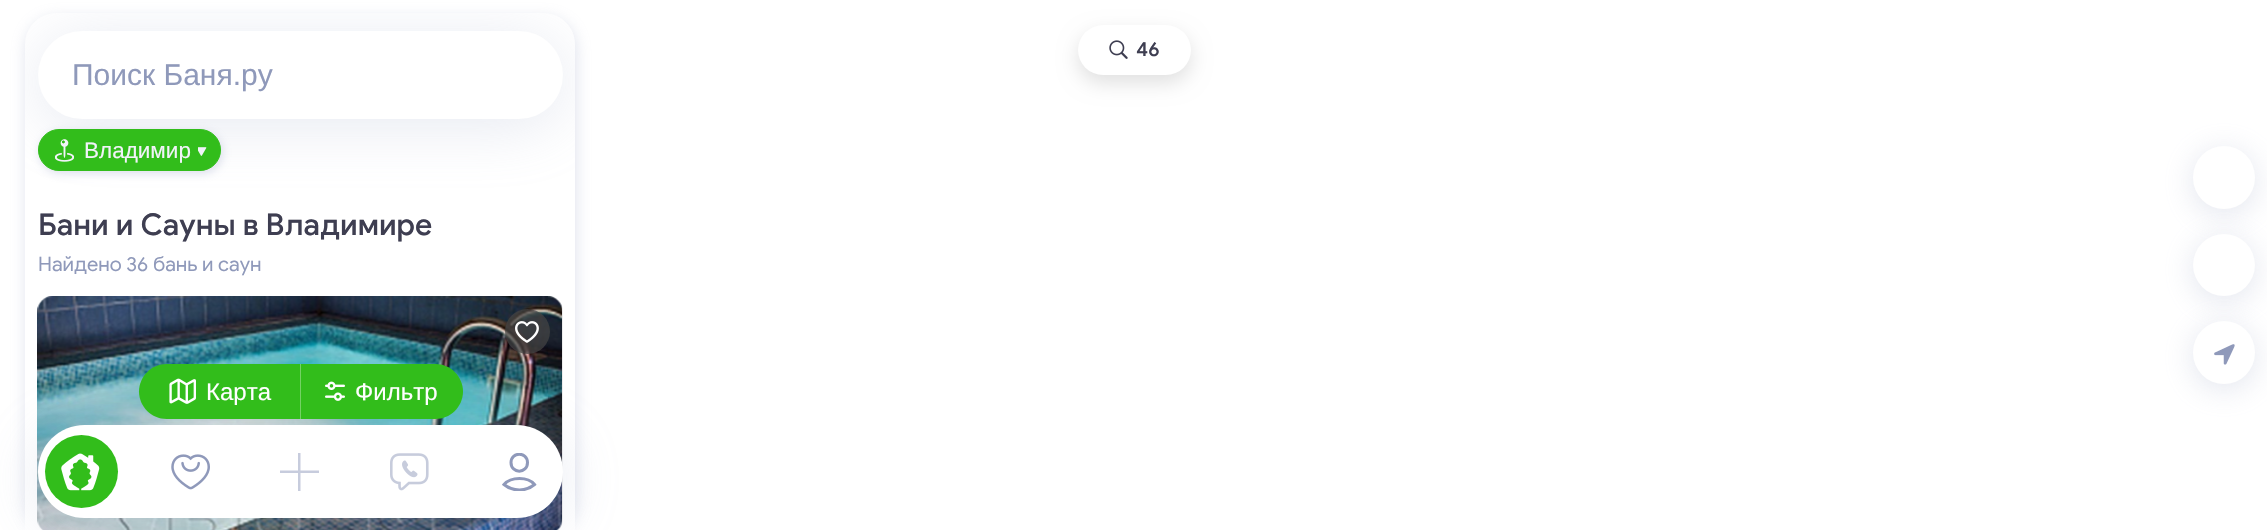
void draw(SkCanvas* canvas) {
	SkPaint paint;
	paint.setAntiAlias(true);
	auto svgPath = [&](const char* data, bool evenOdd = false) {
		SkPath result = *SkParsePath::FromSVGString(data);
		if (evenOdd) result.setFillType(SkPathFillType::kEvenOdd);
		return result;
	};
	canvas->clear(0xffffffff);
	paint.setColor(0x1f000000);
	paint.setMaskFilter(SkMaskFilter::MakeBlur(kNormal_SkBlurStyle, 10));
	canvas->drawRoundRect(SkRect::MakeXYWH(1078, 33, 113, 50), 25, 25, paint);
	paint.setMaskFilter(nullptr);
	paint.setColor(0xffffffff);
	canvas->drawRoundRect(SkRect::MakeXYWH(1078, 25, 113, 50), 25, 25, paint);
	canvas->drawImageRect(SkImages::DeferredFromEncodedData(SkData::MakeFromFileName("img1.png")), SkRect::MakeXYWH(1109, 40, 19, 19), SkSamplingOptions());
	SkFont f1(fontMgr->matchFamilyStyle("Google Sans", SkFontStyle(500, SkFontStyle::kNormal_Width, SkFontStyle::kUpright_Slant)), 20);
	f1.setSubpixel(true);
	paint.setColor(0xff3e3e51);
	canvas->drawString("46", 1136, 56, f1, paint);
	paint.setColor(0x52a6afcb);
	paint.setMaskFilter(SkMaskFilter::MakeBlur(kNormal_SkBlurStyle, 15));
	canvas->drawRoundRect(SkRect::MakeXYWH(2193, 151, 62, 63), 31, 31, paint);
	paint.setMaskFilter(nullptr);
	paint.setColor(0xffffffff);
	canvas->drawRoundRect(SkRect::MakeXYWH(2193, 146, 62, 63), 31, 31, paint);
	paint.setColor(0x52a6afcb);
	paint.setMaskFilter(SkMaskFilter::MakeBlur(kNormal_SkBlurStyle, 15));
	canvas->drawRoundRect(SkRect::MakeXYWH(2193, 239, 62, 62), 31, 31, paint);
	paint.setMaskFilter(nullptr);
	paint.setColor(0xffffffff);
	canvas->drawCircle(2224, 265, 31, paint);
	paint.setColor(0x52a6afcb);
	paint.setMaskFilter(SkMaskFilter::MakeBlur(kNormal_SkBlurStyle, 15));
	canvas->drawRoundRect(SkRect::MakeXYWH(2193, 326, 62, 63), 31, 31, paint);
	paint.setMaskFilter(nullptr);
	paint.setColor(0xffffffff);
	canvas->drawRoundRect(SkRect::MakeXYWH(2193, 321, 62, 63), 31, 31, paint);
	canvas->drawImageRect(SkImages::DeferredFromEncodedData(SkData::MakeFromFileName("img2.png")), SkRect::MakeXYWH(2214, 344, 21, 21), SkSamplingOptions());
	paint.setColor(0x5ca6afcd);
	paint.setMaskFilter(SkMaskFilter::MakeBlur(kNormal_SkBlurStyle, 7.5));
	canvas->drawRoundRect(SkRect::MakeXYWH(26, 18, 550, 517), 31, 31, paint);
	paint.setMaskFilter(nullptr);
	paint.setColor(0xffffffff);
	canvas->drawPath(svgPath("M56 13H544C561 13 575 27 575 44V530H25V44C25 27 39 13 56 13Z"), paint);
	canvas->save();
	canvas->clipPath(svgPath("M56 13H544C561 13 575 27 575 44V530H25V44C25 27 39 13 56 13Z"), true);
	paint.setColor(0x47a6afcb);
	paint.setMaskFilter(SkMaskFilter::MakeBlur(kNormal_SkBlurStyle, 31));
	canvas->drawRoundRect(SkRect::MakeXYWH(38, 39, 525, 87), 43.5, 43.5, paint);
	paint.setMaskFilter(nullptr);
	canvas->restore();
	paint.setColor(0x5ca6afcd);
	paint.setMaskFilter(SkMaskFilter::MakeBlur(kNormal_SkBlurStyle, 4));
	canvas->drawRoundRect(SkRect::MakeXYWH(39, 131, 184, 43), 21.5, 21.5, paint);
	paint.setMaskFilter(nullptr);
	paint.setColor(0xffffffff);
	canvas->drawRoundRect(SkRect::MakeXYWH(38, 31, 525, 88), 44, 44, paint);
	SkFont f2(fontMgr->matchFamilyStyle("Liberation Sans", SkFontStyle::Normal()), 30);
	f2.setSubpixel(true);
	paint.setColor(0xff8f99ba);
	canvas->drawString("Поиск Баня.ру", 72, 85, f2, paint);
	paint.setColor(0xff32bd1b);
	canvas->drawRoundRect(SkRect::MakeXYWH(38.5, 129.5, 182, 41), 20.5, 20.5, paint);
	paint.setStroke(true);
	paint.setStrokeWidth(1);
	canvas->drawRoundRect(SkRect::MakeXYWH(38.5, 129.5, 182, 41), 20.5, 20.5, paint);
	canvas->drawImageRect(SkImages::DeferredFromEncodedData(SkData::MakeFromFileName("img3.png")), SkRect::MakeXYWH(55, 139, 19, 23), SkSamplingOptions());
	SkFont f3(fontMgr->matchFamilyStyle("Liberation Sans", SkFontStyle::Normal()), 22.5);
	f3.setSubpixel(true);
	paint.setStroke(false);
	paint.setColor(0xfff1f3f9);
	canvas->drawString("Владимир", 84, 158, f3, paint);
	canvas->drawImageRect(SkImages::DeferredFromEncodedData(SkData::MakeFromFileName("img4.png")), SkRect::MakeXYWH(198, 147, 9, 9), SkSamplingOptions());
	SkFont f4(fontMgr->matchFamilyStyle("Google Sans", SkFontStyle(500, SkFontStyle::kNormal_Width, SkFontStyle::kUpright_Slant)), 30);
	f4.setSubpixel(true);
	paint.setColor(0xff3e3e51);
	canvas->drawString("Бани и Сауны в Владимире", 38, 235, f4, paint);
	SkFont f5(fontMgr->matchFamilyStyle("Google Sans", SkFontStyle::Normal()), 20);
	f5.setSubpixel(true);
	paint.setColor(0xff8f99ba);
	canvas->drawString("Найдено 36 бань и саун", 38, 271, f5, paint);
	{
		const SkColor colors[] = {0xffececec, 0xfff5f5f5, 0xffececec};
		const float stops[] = {0.08, 0.18, 0.33};
		const SkPoint ends[] = {{61, 232}, {1064, 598}};
		paint.setShader(SkGradientShader::MakeLinear(ends, colors, stops, 3, SkTileMode::kClamp));
		paint.setAlpha(255);
	}
	canvas->drawRoundRect(SkRect::MakeXYWH(38, 296, 525, 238), 15, 15, paint);
	canvas->drawImageRect(SkImages::DeferredFromEncodedData(SkData::MakeFromFileName("img5.png")), SkRect::MakeXYWH(37, 296, 525, 234), SkSamplingOptions());
	paint.setShader(nullptr);
	paint.setColor(0xb3454545);
	canvas->drawCircle(527.5, 331.5, 22.5, paint);
	canvas->drawImageRect(SkImages::DeferredFromEncodedData(SkData::MakeFromFileName("img6.png")), SkRect::MakeXYWH(515, 321, 24, 22), SkSamplingOptions());
	paint.setColor(0x47a6afcb);
	paint.setMaskFilter(SkMaskFilter::MakeBlur(kNormal_SkBlurStyle, 31));
	canvas->drawRoundRect(SkRect::MakeXYWH(38, 433, 525, 92), 46, 46, paint);
	paint.setMaskFilter(nullptr);
	paint.setColor(0xffffffff);
	canvas->drawRoundRect(SkRect::MakeXYWH(38, 425, 525, 93), 46.5, 46.5, paint);
	paint.setColor(0xff32bd1b);
	canvas->drawCircle(81.5, 471.5, 36.5, paint);
	canvas->drawImageRect(SkImages::DeferredFromEncodedData(SkData::MakeFromFileName("img7.png")), SkRect::MakeXYWH(61, 453, 39, 38), SkSamplingOptions());
	canvas->drawImageRect(SkImages::DeferredFromEncodedData(SkData::MakeFromFileName("img8.png")), SkRect::MakeXYWH(171, 454, 39, 36), SkSamplingOptions());
	canvas->save();
	canvas->clipRect(SkRect::MakeXYWH(280, 453, 39, 38));
	paint.setColor(0xffc7ccdd);
	canvas->drawPath(svgPath("M319 473H300.5V491H298V473H280V470.5H298V452.5H300.5V470.5H319Z"), paint);
	canvas->restore();
	canvas->drawImageRect(SkImages::DeferredFromEncodedData(SkData::MakeFromFileName("img9.png")), SkRect::MakeXYWH(390, 453, 39, 38), SkSamplingOptions());
	canvas->save();
	canvas->clipRect(SkRect::MakeXYWH(500, 453, 39, 38));
	paint.setStroke(true);
	paint.setStrokeWidth(3);
	paint.setColor(0xff8f99ba);
	canvas->drawPath(svgPath("M511 462.5C511 451.5 527.5 451.5 527.5 462.5C527.5 474 511 474 511 462.5ZM519.5 490C514 490 508 488 504 484.5C511 476.5 528 476.5 534.5 484.5C530.5 488 525 490 519.5 490Z"), paint);
	canvas->restore();
	paint.setStroke(false);
	paint.setColor(0xff32bd1b);
	canvas->drawPath(svgPath("M166.5 364H301V419H166.5C151.5 419 139 406.5 139 391.5C139 376.5 151.5 364 166.5 364Z"), paint);
	canvas->drawImageRect(SkImages::DeferredFromEncodedData(SkData::MakeFromFileName("img10.png")), SkRect::MakeXYWH(169, 378, 27, 26), SkSamplingOptions());
	SkFont f6(fontMgr->matchFamilyStyle("Liberation Sans", SkFontStyle::Normal()), 24);
	f6.setSubpixel(true);
	paint.setColor(0xffffffff);
	canvas->drawString("Карта", 206, 400, f6, paint);
	paint.setColor(0xff32bd1b);
	canvas->drawPath(svgPath("M300 364H435.5C450.5 364 463 376.5 463 391.5C463 406.5 450.5 419 435.5 419H300Z"), paint);
	paint.setColor(0xff74d264);
	canvas->drawRect(SkRect::MakeXYWH(300, 364, 1, 55), paint);
	canvas->drawImageRect(SkImages::DeferredFromEncodedData(SkData::MakeFromFileName("img11.png")), SkRect::MakeXYWH(325, 381, 20, 20), SkSamplingOptions());
	paint.setColor(0xffffffff);
	canvas->drawString("Фильтр", 355, 400, f6, paint);
}
